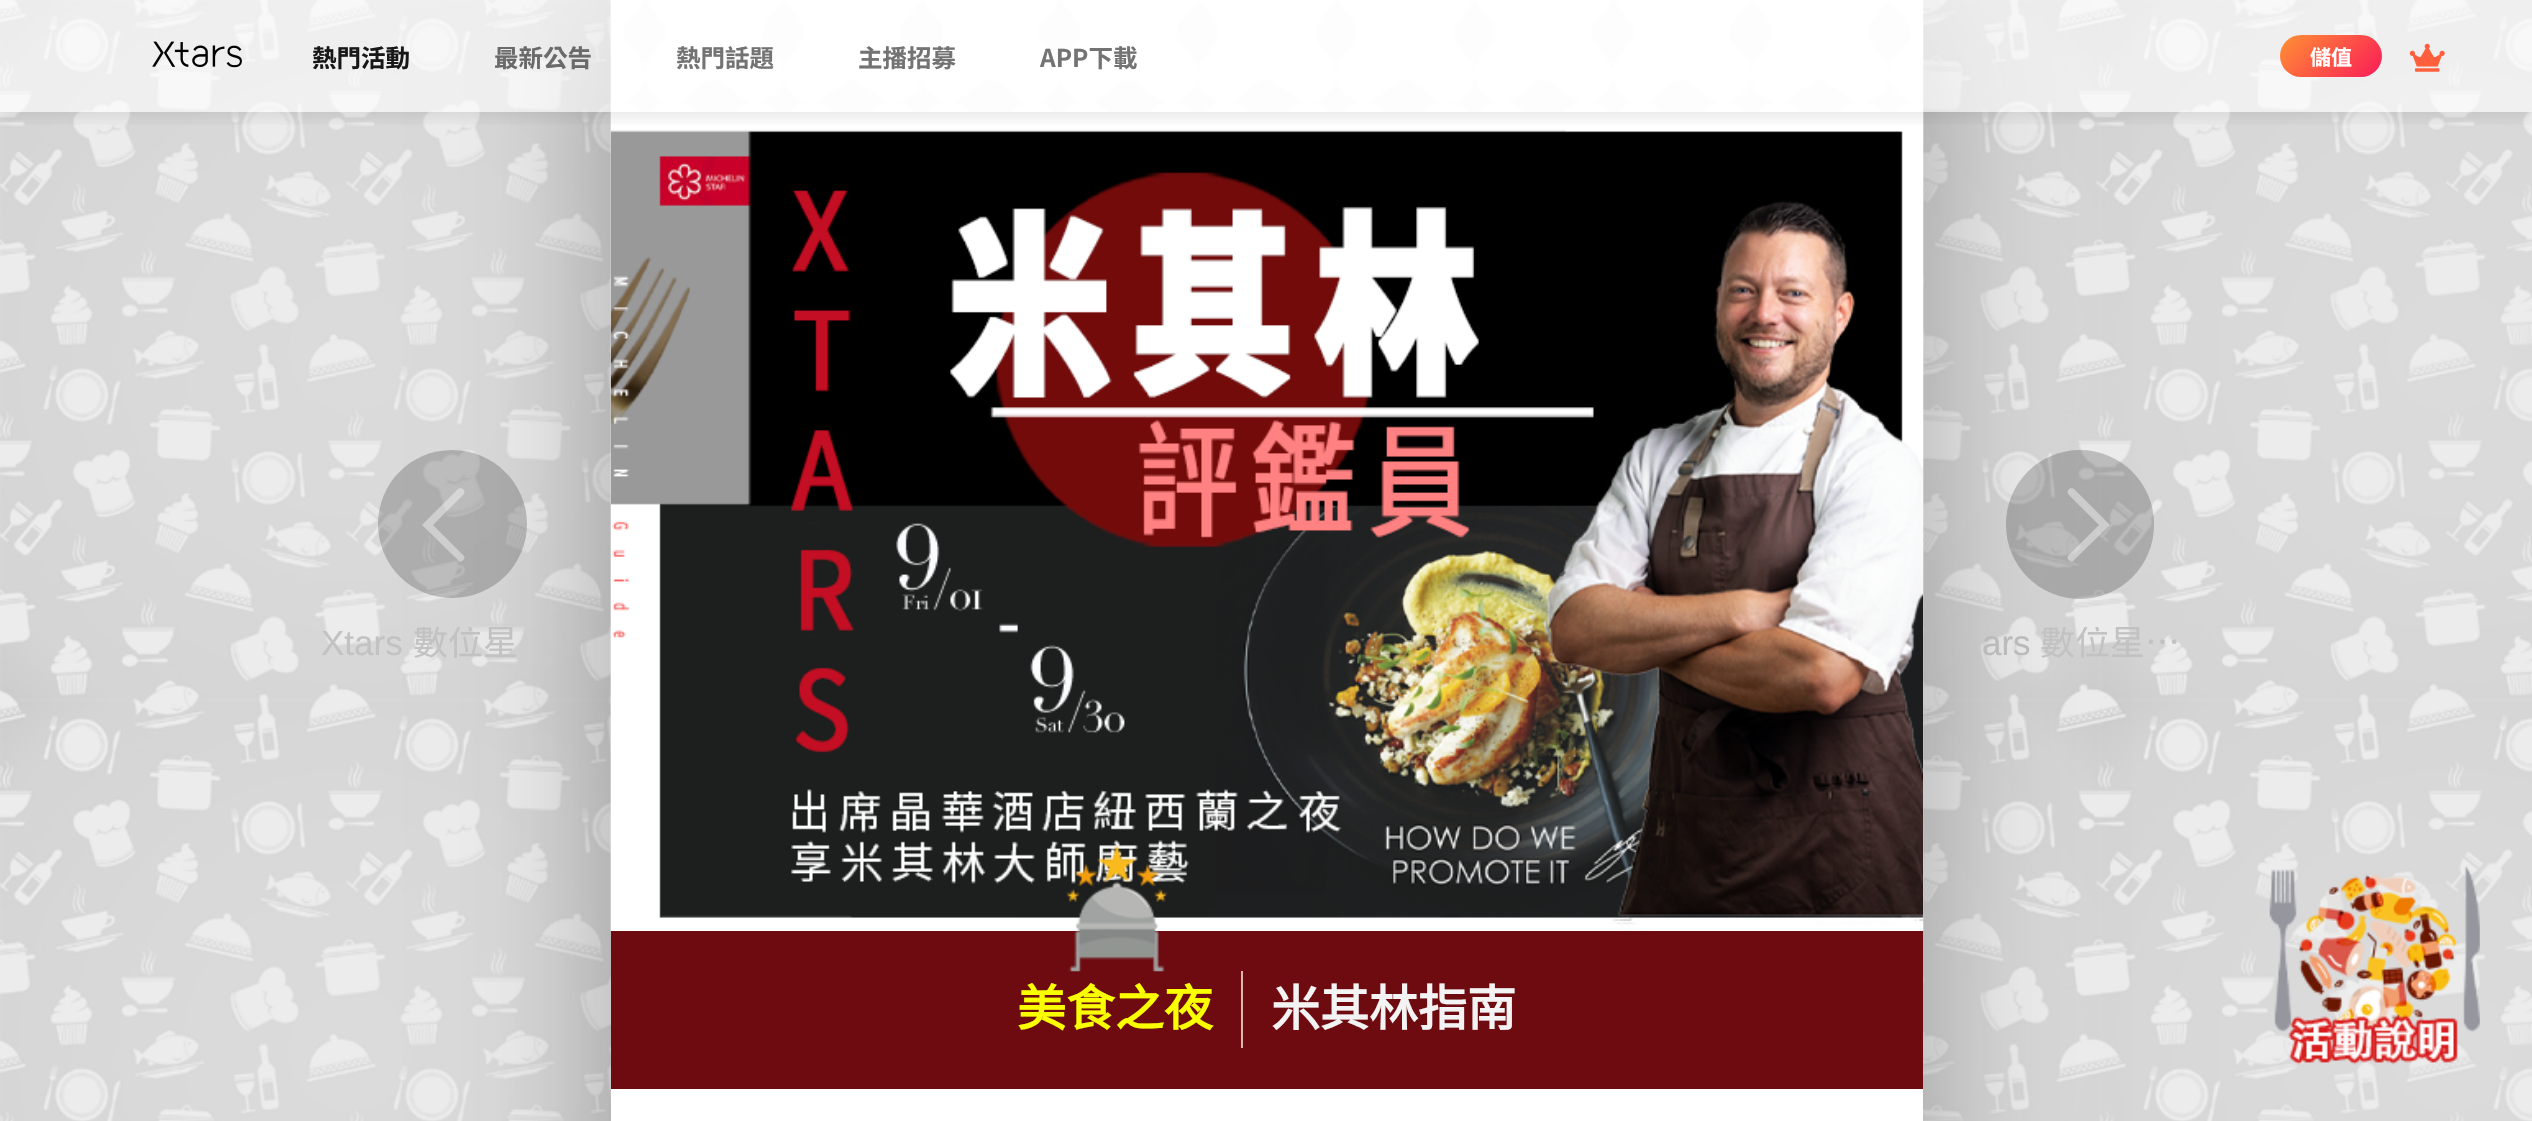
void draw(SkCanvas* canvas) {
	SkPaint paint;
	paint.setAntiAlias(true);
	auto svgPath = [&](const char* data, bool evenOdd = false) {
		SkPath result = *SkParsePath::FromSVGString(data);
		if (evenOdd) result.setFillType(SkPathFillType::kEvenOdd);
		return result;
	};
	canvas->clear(0xfff0f0f0);
	canvas->drawImageRect(SkImages::DeferredFromEncodedData(SkData::MakeFromFileName("img3.png")), SkRect::MakeXYWH(0, 0, 2532, 1121), SkSamplingOptions());
	paint.setColor(0x4d000000);
	paint.setMaskFilter(SkMaskFilter::MakeBlur(kNormal_SkBlurStyle, 70));
	canvas->drawRect(SkRect::MakeXYWH(611, 7, 1312, 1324), paint);
	paint.setMaskFilter(nullptr);
	canvas->drawImageRect(SkImages::DeferredFromEncodedData(SkData::MakeFromFileName("img4.png")), SkRect::MakeXYWH(610, 0, 1314, 931), SkSamplingOptions());
	canvas->drawImageRect(SkImages::DeferredFromEncodedData(SkData::MakeFromFileName("img5.png")), SkRect::MakeXYWH(610, 112, 1314, 819), SkSamplingOptions());
	canvas->save();
	canvas->clipRect(SkRect::MakeXYWH(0, 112, 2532, 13));
	paint.setColor(0x1a333333);
	paint.setMaskFilter(SkMaskFilter::MakeBlur(kNormal_SkBlurStyle, 7));
	canvas->drawRect(SkRect::MakeXYWH(0, 7, 2532, 112), paint);
	paint.setMaskFilter(nullptr);
	canvas->restore();
	paint.setColor(0x99ffffff);
	canvas->drawRect(SkRect::MakeXYWH(0, 0, 2532, 112), paint);
	canvas->drawImageRect(SkImages::DeferredFromEncodedData(SkData::MakeFromFileName("img1.png")), SkRect::MakeXYWH(152, 41, 90, 27), SkSamplingOptions());
	SkFont f1(fontMgr->matchFamilyStyle("Noto Sans TC", SkFontStyle::Bold()), 24.5);
	f1.setSubpixel(true);
	paint.setColor(0xff181818);
	canvas->drawString("熱門活動", 312, 67, f1, paint);
	paint.setColor(0xff6a6a6a);
	canvas->drawString("最新公告", 494, 67, f1, paint);
	paint.setColor(0xff737373);
	canvas->drawString("熱門話題", 676, 67, f1, paint);
	canvas->drawString("主播招募", 858, 67, f1, paint);
	canvas->drawString("APP下載", 1040, 67, f1, paint);
	{
		const SkColor colors[] = {0xffff9133, 0xfffa1b58};
		const float stops[] = {0, 1};
		const SkPoint ends[] = {{2295, 20}, {2367, 92}};
		paint.setShader(SkGradientShader::MakeLinear(ends, colors, stops, 2, SkTileMode::kClamp));
		paint.setAlpha(255);
	}
	canvas->drawRoundRect(SkRect::MakeXYWH(2280, 35, 102, 42), 21, 21, paint);
	SkFont f2(fontMgr->matchFamilyStyle("Noto Sans TC", SkFontStyle::Bold()), 21);
	f2.setSubpixel(true);
	paint.setShader(nullptr);
	paint.setColor(0xffffffff);
	canvas->drawString("儲值", 2310, 65, f2, paint);
	canvas->drawImageRect(SkImages::DeferredFromEncodedData(SkData::MakeFromFileName("img2.png")), SkRect::MakeXYWH(2409, 43, 36, 29), SkSamplingOptions());
	canvas->drawRect(SkRect::MakeXYWH(611, 1089, 1312, 32), paint);
	paint.setColor(0x33000000);
	canvas->drawPath(svgPath("M452 450C411 450 378 483 378 524C378 565 411 598 452 598C493 598 527 565 527 524C527 483 493 450 452 450Z"), paint);
	paint.setColor(0x66ffffff);
	canvas->drawPath(svgPath("M463 489C462 488 459 488 458 489L422 525L458 560C459 562 462 562 463 560C465 559 465 556 463 555L433 525L463 495C465 493 465 491 463 489Z", true), paint);
	SkFont f3(fontMgr->matchFamilyStyle("Liberation Sans", SkFontStyle::Normal()), 35);
	f3.setSubpixel(true);
	paint.setColor(0xffc2c2c2);
	canvas->drawString("Xtars", 321, 655, f3, paint);
	canvas->save();
	canvas->clipRect(SkRect::MakeXYWH(322, 627, 263, 35));
	SkFont f4(fontMgr->matchFamilyStyle("Noto Sans CJK TC", SkFontStyle::Normal()), 35);
	f4.setSubpixel(true);
	canvas->drawString("數位星", 413, 655, f4, paint);
	canvas->restore();
	paint.setColor(0x33000000);
	canvas->drawRoundRect(SkRect::MakeXYWH(2006, 450, 148, 149), 74, 74, paint);
	paint.setColor(0x66ffffff);
	canvas->drawPath(svgPath("M2069 489C2070 488 2073 488 2074 489L2110 525L2074 560C2073 562 2070 562 2069 560C2067 559 2067 556 2069 555L2099 525L2069 495C2067 493 2067 491 2069 489Z", true), paint);
	paint.setColor(0xffbababa);
	canvas->drawString("ars", 1982, 655, f3, paint);
	canvas->save();
	canvas->clipRect(SkRect::MakeXYWH(1950, 627, 262, 35));
	paint.setColor(0xffc2c2c2);
	canvas->drawString("數位星…", 2040, 655, f4, paint);
	canvas->restore();
	paint.setColor(0xff6d0b11);
	canvas->drawRect(SkRect::MakeXYWH(611, 931, 1312, 158), paint);
	canvas->drawImageRect(SkImages::DeferredFromEncodedData(SkData::MakeFromFileName("img6.png")), SkRect::MakeXYWH(1066, 845, 102, 127), SkSamplingOptions());
	paint.setColor(0xffe3b3b0);
	canvas->drawRect(SkRect::MakeXYWH(1241, 971, 2, 77), paint);
	SkFont f5(fontMgr->matchFamilyStyle("Noto Sans CJK TC", SkFontStyle::Bold()), 49);
	f5.setSubpixel(true);
	paint.setColor(0xfffaff00);
	canvas->drawString("美食之夜", 1017, 1026, f5, paint);
	paint.setColor(0xfff3f3f3);
	canvas->drawString("米其林指南", 1271, 1026, f5, paint);
	canvas->drawImageRect(SkImages::DeferredFromEncodedData(SkData::MakeFromFileName("img7.png")), SkRect::MakeXYWH(2269, 866, 211, 199), SkSamplingOptions());
}
